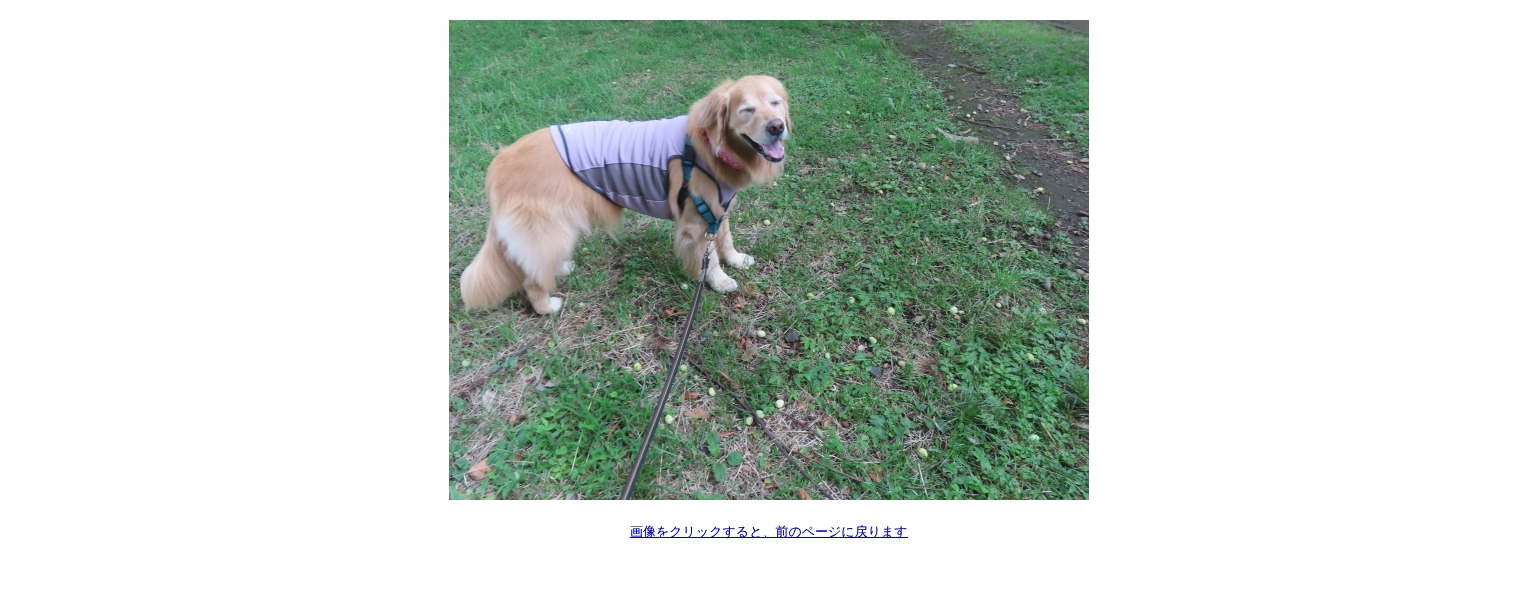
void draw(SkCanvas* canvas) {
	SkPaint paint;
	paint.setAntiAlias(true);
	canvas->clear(0xffffffff);
	canvas->drawImageRect(SkImages::DeferredFromEncodedData(SkData::MakeFromFileName("img1.png")), SkRect::MakeXYWH(449, 20, 640, 480), SkSamplingOptions());
	paint.setColor(0xff0000cc);
	canvas->drawRect(SkRect::MakeXYWH(630, 537, 278, 1), paint);
	SkFont f1(fontMgr->matchFamilyStyle("WenQuanYi Zen Hei", SkFontStyle(500, SkFontStyle::kNormal_Width, SkFontStyle::kUpright_Slant)), 13);
	f1.setSubpixel(true);
	canvas->drawString("画像をクリックすると、前のページに戻ります", 630, 536, f1, paint);
}
